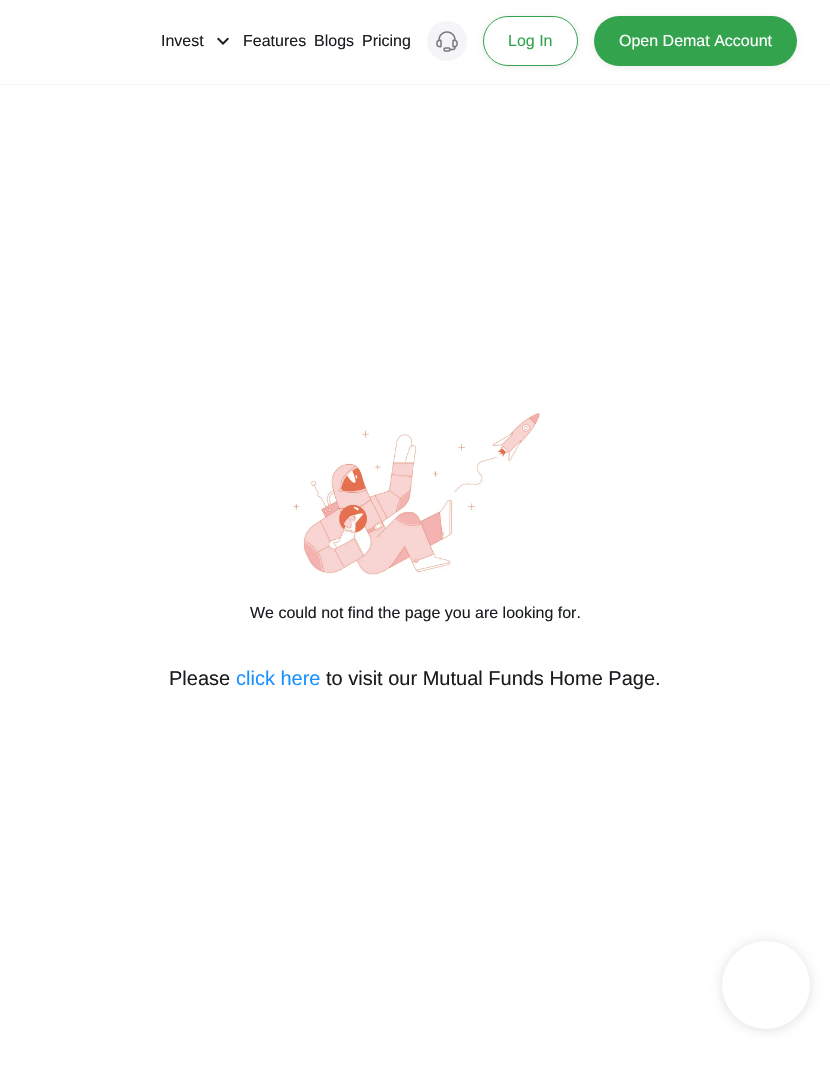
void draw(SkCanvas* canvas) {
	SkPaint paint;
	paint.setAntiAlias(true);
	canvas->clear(0xffffffff);
	paint.setColor(0xfff4f4f4);
	canvas->drawRect(SkRect::MakeXYWH(0, 84, 830, 1), paint);
	SkFont f1(fontMgr->matchFamilyStyle("Liberation Sans", SkFontStyle::Normal()), 16);
	f1.setSubpixel(true);
	paint.setColor(0xff191c1f);
	canvas->drawString("Invest", 161, 46, f1, paint);
	canvas->drawImageRect(SkImages::DeferredFromEncodedData(SkData::MakeFromFileName("img1.png")), SkRect::MakeXYWH(217, 37, 12, 8), SkSamplingOptions());
	canvas->drawString("Features", 243, 46, f1, paint);
	canvas->drawString("Blogs", 314, 46, f1, paint);
	canvas->drawString("Pricing", 362, 46, f1, paint);
	paint.setColor(0xfff5f5f8);
	canvas->drawCircle(447, 41, 20, paint);
	canvas->drawImageRect(SkImages::DeferredFromEncodedData(SkData::MakeFromFileName("img2.png")), SkRect::MakeXYWH(436, 31, 22, 21), SkSamplingOptions());
	paint.setColor(0x14000000);
	paint.setMaskFilter(SkMaskFilter::MakeBlur(kNormal_SkBlurStyle, 3));
	canvas->drawRoundRect(SkRect::MakeXYWH(483, 17, 95, 50), 25, 25, paint);
	paint.setMaskFilter(nullptr);
	paint.setColor(0xffffffff);
	canvas->drawRoundRect(SkRect::MakeXYWH(483.5, 16.5, 94, 49), 24.5, 24.5, paint);
	paint.setStroke(true);
	paint.setStrokeWidth(1);
	paint.setColor(0xff33a34d);
	canvas->drawRoundRect(SkRect::MakeXYWH(483.5, 16.5, 94, 49), 24.5, 24.5, paint);
	paint.setStroke(false);
	canvas->drawString("Log In", 508, 46, f1, paint);
	paint.setColor(0x14000000);
	paint.setMaskFilter(SkMaskFilter::MakeBlur(kNormal_SkBlurStyle, 3));
	canvas->drawRoundRect(SkRect::MakeXYWH(594, 17, 203, 50), 25, 25, paint);
	paint.setMaskFilter(nullptr);
	paint.setColor(0xff33a34d);
	canvas->drawRoundRect(SkRect::MakeXYWH(594, 16, 203, 50), 25, 25, paint);
	paint.setColor(0xffffffff);
	canvas->drawString("Open Demat Account", 619, 46, f1, paint);
	paint.setColor(0x1f000000);
	paint.setMaskFilter(SkMaskFilter::MakeBlur(kNormal_SkBlurStyle, 6));
	canvas->drawRoundRect(SkRect::MakeXYWH(722, 942, 88, 88), 44, 44, paint);
	paint.setMaskFilter(nullptr);
	paint.setColor(0xffffffff);
	canvas->drawCircle(766, 985, 44, paint);
	canvas->drawImageRect(SkImages::DeferredFromEncodedData(SkData::MakeFromFileName("img3.png")), SkRect::MakeXYWH(293, 413, 247, 162), SkSamplingOptions());
	paint.setColor(0xff191c1f);
	canvas->drawString("We could not find the page you are looking for.", 250, 618, f1, paint);
	SkFont f2(fontMgr->matchFamilyStyle("Liberation Sans", SkFontStyle::Normal()), 20);
	f2.setSubpixel(true);
	canvas->drawString("Please", 169, 685, f2, paint);
	paint.setColor(0xff1890ff);
	canvas->drawString("click here", 236, 685, f2, paint);
	paint.setColor(0xff191c1f);
	canvas->drawString("to visit our Mutual Funds Home Page.", 326, 685, f2, paint);
}
